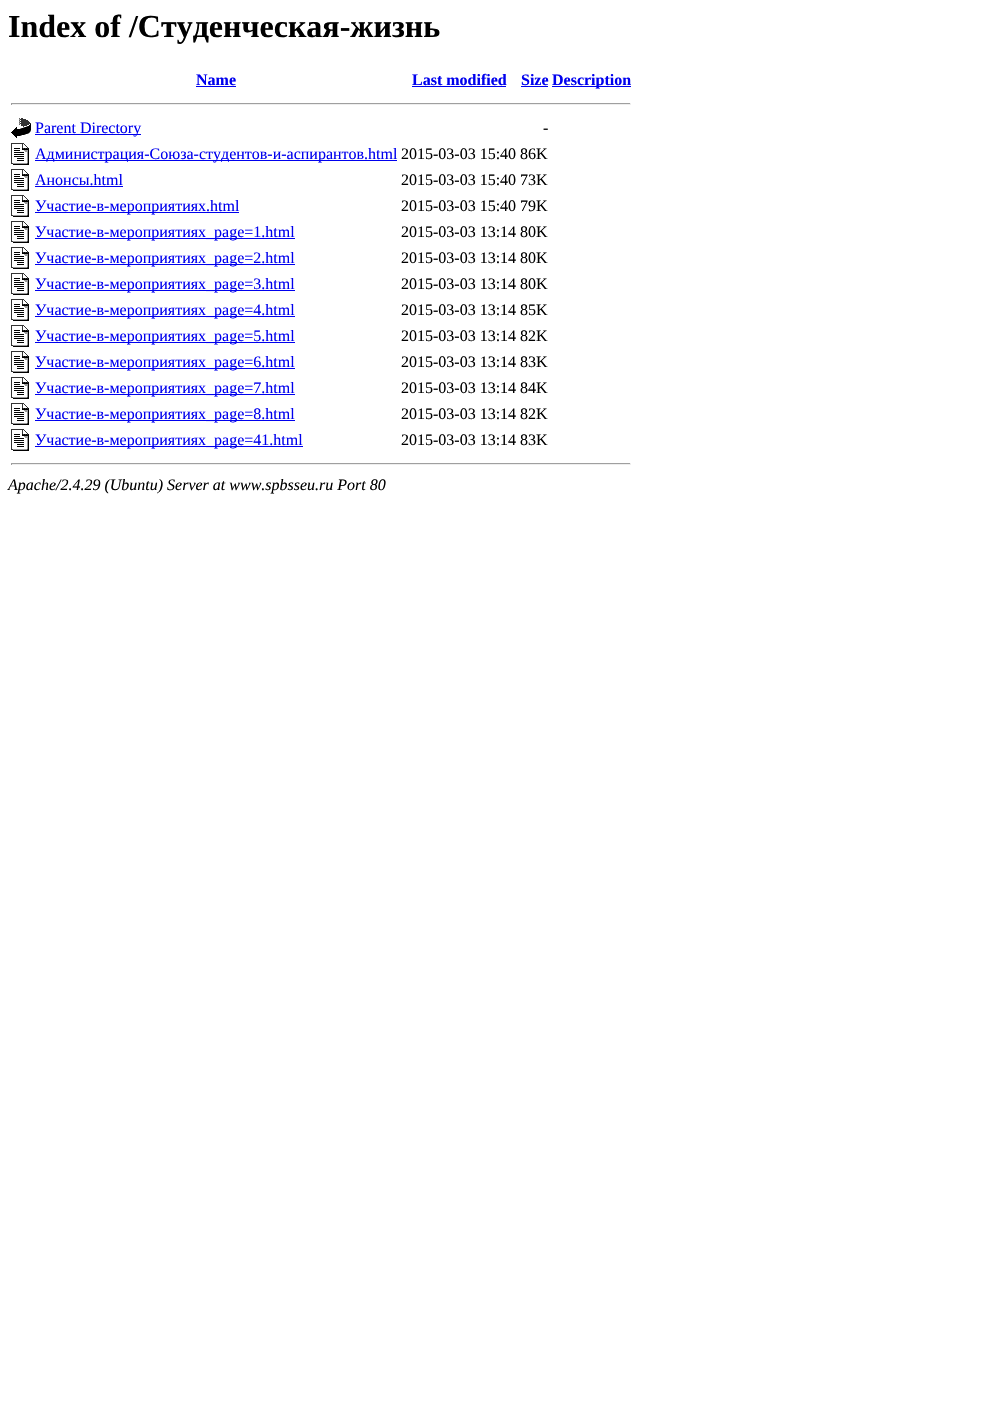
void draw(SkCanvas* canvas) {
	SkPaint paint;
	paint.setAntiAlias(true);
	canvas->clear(0xffffffff);
	SkFont f1(fontMgr->matchFamilyStyle("Liberation Serif", SkFontStyle::Bold()), 32);
	f1.setSubpixel(true);
	paint.setColor(0xff000000);
	canvas->drawString("Index of /Студенческая-жизнь", 8, 37, f1, paint);
	SkFont f2(fontMgr->matchFamilyStyle("Liberation Serif", SkFontStyle::Bold()), 16);
	f2.setSubpixel(true);
	paint.setColor(0xff0000ee);
	canvas->drawString("Name", 196, 85, f2, paint);
	canvas->drawRect(SkRect::MakeXYWH(196, 86, 40, 1), paint);
	canvas->drawString("Last modified", 412, 85, f2, paint);
	canvas->drawRect(SkRect::MakeXYWH(412, 86, 94, 1), paint);
	canvas->drawString("Size", 521, 85, f2, paint);
	canvas->drawRect(SkRect::MakeXYWH(521, 86, 27, 1), paint);
	canvas->drawRect(SkRect::MakeXYWH(552, 86, 79, 1), paint);
	canvas->drawString("Description", 552, 85, f2, paint);
	paint.setColor(0xff9f9f9f);
	canvas->drawRect(SkRect::MakeXYWH(11, 103, 620, 1), paint);
	paint.setColor(0xffeeeeee);
	canvas->drawRect(SkRect::MakeXYWH(630, 103, 1, 2), paint);
	canvas->drawRect(SkRect::MakeXYWH(11, 104, 620, 1), paint);
	paint.setColor(0xff9f9f9f);
	canvas->drawRect(SkRect::MakeXYWH(11, 103, 1, 2), paint);
	canvas->drawImageRect(SkImages::DeferredFromEncodedData(SkData::MakeFromFileName("img1.png")), SkRect::MakeXYWH(11, 118, 20, 20), SkSamplingOptions());
	paint.setColor(0xff0000ee);
	canvas->drawRect(SkRect::MakeXYWH(35, 134, 106, 1), paint);
	SkFont f3(fontMgr->matchFamilyStyle("Liberation Serif", SkFontStyle::Normal()), 16);
	f3.setSubpixel(true);
	canvas->drawString("Parent Directory", 35, 133, f3, paint);
	paint.setColor(0xff000000);
	canvas->drawString("-", 543, 133, f3, paint);
	canvas->drawImageRect(SkImages::DeferredFromEncodedData(SkData::MakeFromFileName("img2.png")), SkRect::MakeXYWH(11, 143, 18, 22), SkSamplingOptions());
	paint.setColor(0xff0000ee);
	canvas->drawRect(SkRect::MakeXYWH(35, 160, 362, 1), paint);
	canvas->drawString("Администрация-Союза-студентов-и-аспирантов.html", 35, 159, f3, paint);
	paint.setColor(0xff000000);
	canvas->drawString("2015-03-03 15:40 86K", 401, 159, f3, paint);
	canvas->drawImageRect(SkImages::DeferredFromEncodedData(SkData::MakeFromFileName("img2.png")), SkRect::MakeXYWH(11, 169, 18, 22), SkSamplingOptions());
	paint.setColor(0xff0000ee);
	canvas->drawString("Анонсы.html", 35, 185, f3, paint);
	canvas->drawRect(SkRect::MakeXYWH(35, 186, 88, 1), paint);
	paint.setColor(0xff000000);
	canvas->drawString("2015-03-03 15:40 73K", 401, 185, f3, paint);
	canvas->drawImageRect(SkImages::DeferredFromEncodedData(SkData::MakeFromFileName("img2.png")), SkRect::MakeXYWH(11, 195, 18, 22), SkSamplingOptions());
	paint.setColor(0xff0000ee);
	canvas->drawRect(SkRect::MakeXYWH(35, 212, 204, 1), paint);
	canvas->drawString("Участие-в-мероприятиях.html", 35, 211, f3, paint);
	paint.setColor(0xff000000);
	canvas->drawString("2015-03-03 15:40 79K", 401, 211, f3, paint);
	canvas->drawImageRect(SkImages::DeferredFromEncodedData(SkData::MakeFromFileName("img2.png")), SkRect::MakeXYWH(11, 221, 18, 22), SkSamplingOptions());
	paint.setColor(0xff0000ee);
	canvas->drawRect(SkRect::MakeXYWH(35, 238, 260, 1), paint);
	canvas->drawString("Участие-в-мероприятиях_page=1.html", 35, 237, f3, paint);
	paint.setColor(0xff000000);
	canvas->drawString("2015-03-03 13:14 80K", 401, 237, f3, paint);
	canvas->drawImageRect(SkImages::DeferredFromEncodedData(SkData::MakeFromFileName("img2.png")), SkRect::MakeXYWH(11, 247, 18, 22), SkSamplingOptions());
	paint.setColor(0xff0000ee);
	canvas->drawRect(SkRect::MakeXYWH(35, 264, 260, 1), paint);
	canvas->drawString("Участие-в-мероприятиях_page=2.html", 35, 263, f3, paint);
	paint.setColor(0xff000000);
	canvas->drawString("2015-03-03 13:14 80K", 401, 263, f3, paint);
	canvas->drawImageRect(SkImages::DeferredFromEncodedData(SkData::MakeFromFileName("img2.png")), SkRect::MakeXYWH(11, 273, 18, 22), SkSamplingOptions());
	paint.setColor(0xff0000ee);
	canvas->drawRect(SkRect::MakeXYWH(35, 290, 260, 1), paint);
	canvas->drawString("Участие-в-мероприятиях_page=3.html", 35, 289, f3, paint);
	paint.setColor(0xff000000);
	canvas->drawString("2015-03-03 13:14 80K", 401, 289, f3, paint);
	canvas->drawImageRect(SkImages::DeferredFromEncodedData(SkData::MakeFromFileName("img2.png")), SkRect::MakeXYWH(11, 299, 18, 22), SkSamplingOptions());
	paint.setColor(0xff0000ee);
	canvas->drawRect(SkRect::MakeXYWH(35, 316, 260, 1), paint);
	canvas->drawString("Участие-в-мероприятиях_page=4.html", 35, 315, f3, paint);
	paint.setColor(0xff000000);
	canvas->drawString("2015-03-03 13:14 85K", 401, 315, f3, paint);
	canvas->drawImageRect(SkImages::DeferredFromEncodedData(SkData::MakeFromFileName("img2.png")), SkRect::MakeXYWH(11, 325, 18, 22), SkSamplingOptions());
	paint.setColor(0xff0000ee);
	canvas->drawRect(SkRect::MakeXYWH(35, 342, 260, 1), paint);
	canvas->drawString("Участие-в-мероприятиях_page=5.html", 35, 341, f3, paint);
	paint.setColor(0xff000000);
	canvas->drawString("2015-03-03 13:14 82K", 401, 341, f3, paint);
	canvas->drawImageRect(SkImages::DeferredFromEncodedData(SkData::MakeFromFileName("img2.png")), SkRect::MakeXYWH(11, 351, 18, 22), SkSamplingOptions());
	paint.setColor(0xff0000ee);
	canvas->drawRect(SkRect::MakeXYWH(35, 368, 260, 1), paint);
	canvas->drawString("Участие-в-мероприятиях_page=6.html", 35, 367, f3, paint);
	paint.setColor(0xff000000);
	canvas->drawString("2015-03-03 13:14 83K", 401, 367, f3, paint);
	canvas->drawImageRect(SkImages::DeferredFromEncodedData(SkData::MakeFromFileName("img2.png")), SkRect::MakeXYWH(11, 377, 18, 22), SkSamplingOptions());
	paint.setColor(0xff0000ee);
	canvas->drawRect(SkRect::MakeXYWH(35, 394, 260, 1), paint);
	canvas->drawString("Участие-в-мероприятиях_page=7.html", 35, 393, f3, paint);
	paint.setColor(0xff000000);
	canvas->drawString("2015-03-03 13:14 84K", 401, 393, f3, paint);
	canvas->drawImageRect(SkImages::DeferredFromEncodedData(SkData::MakeFromFileName("img2.png")), SkRect::MakeXYWH(11, 403, 18, 22), SkSamplingOptions());
	paint.setColor(0xff0000ee);
	canvas->drawRect(SkRect::MakeXYWH(35, 420, 260, 1), paint);
	canvas->drawString("Участие-в-мероприятиях_page=8.html", 35, 419, f3, paint);
	paint.setColor(0xff000000);
	canvas->drawString("2015-03-03 13:14 82K", 401, 419, f3, paint);
	canvas->drawImageRect(SkImages::DeferredFromEncodedData(SkData::MakeFromFileName("img2.png")), SkRect::MakeXYWH(11, 429, 18, 22), SkSamplingOptions());
	paint.setColor(0xff0000ee);
	canvas->drawRect(SkRect::MakeXYWH(35, 446, 268, 1), paint);
	canvas->drawString("Участие-в-мероприятиях_page=41.html", 35, 445, f3, paint);
	paint.setColor(0xff000000);
	canvas->drawString("2015-03-03 13:14 83K", 401, 445, f3, paint);
	paint.setColor(0xff9f9f9f);
	canvas->drawRect(SkRect::MakeXYWH(11, 463, 620, 1), paint);
	paint.setColor(0xffeeeeee);
	canvas->drawRect(SkRect::MakeXYWH(630, 463, 1, 2), paint);
	canvas->drawRect(SkRect::MakeXYWH(11, 464, 620, 1), paint);
	paint.setColor(0xff9f9f9f);
	canvas->drawRect(SkRect::MakeXYWH(11, 463, 1, 2), paint);
	SkFont f4(fontMgr->matchFamilyStyle("Liberation Serif", SkFontStyle::Italic()), 16);
	f4.setSubpixel(true);
	paint.setColor(0xff000000);
	canvas->drawString("Apache/2.4.29 (Ubuntu) Server at www.spbsseu.ru Port 80", 8, 490, f4, paint);
}
